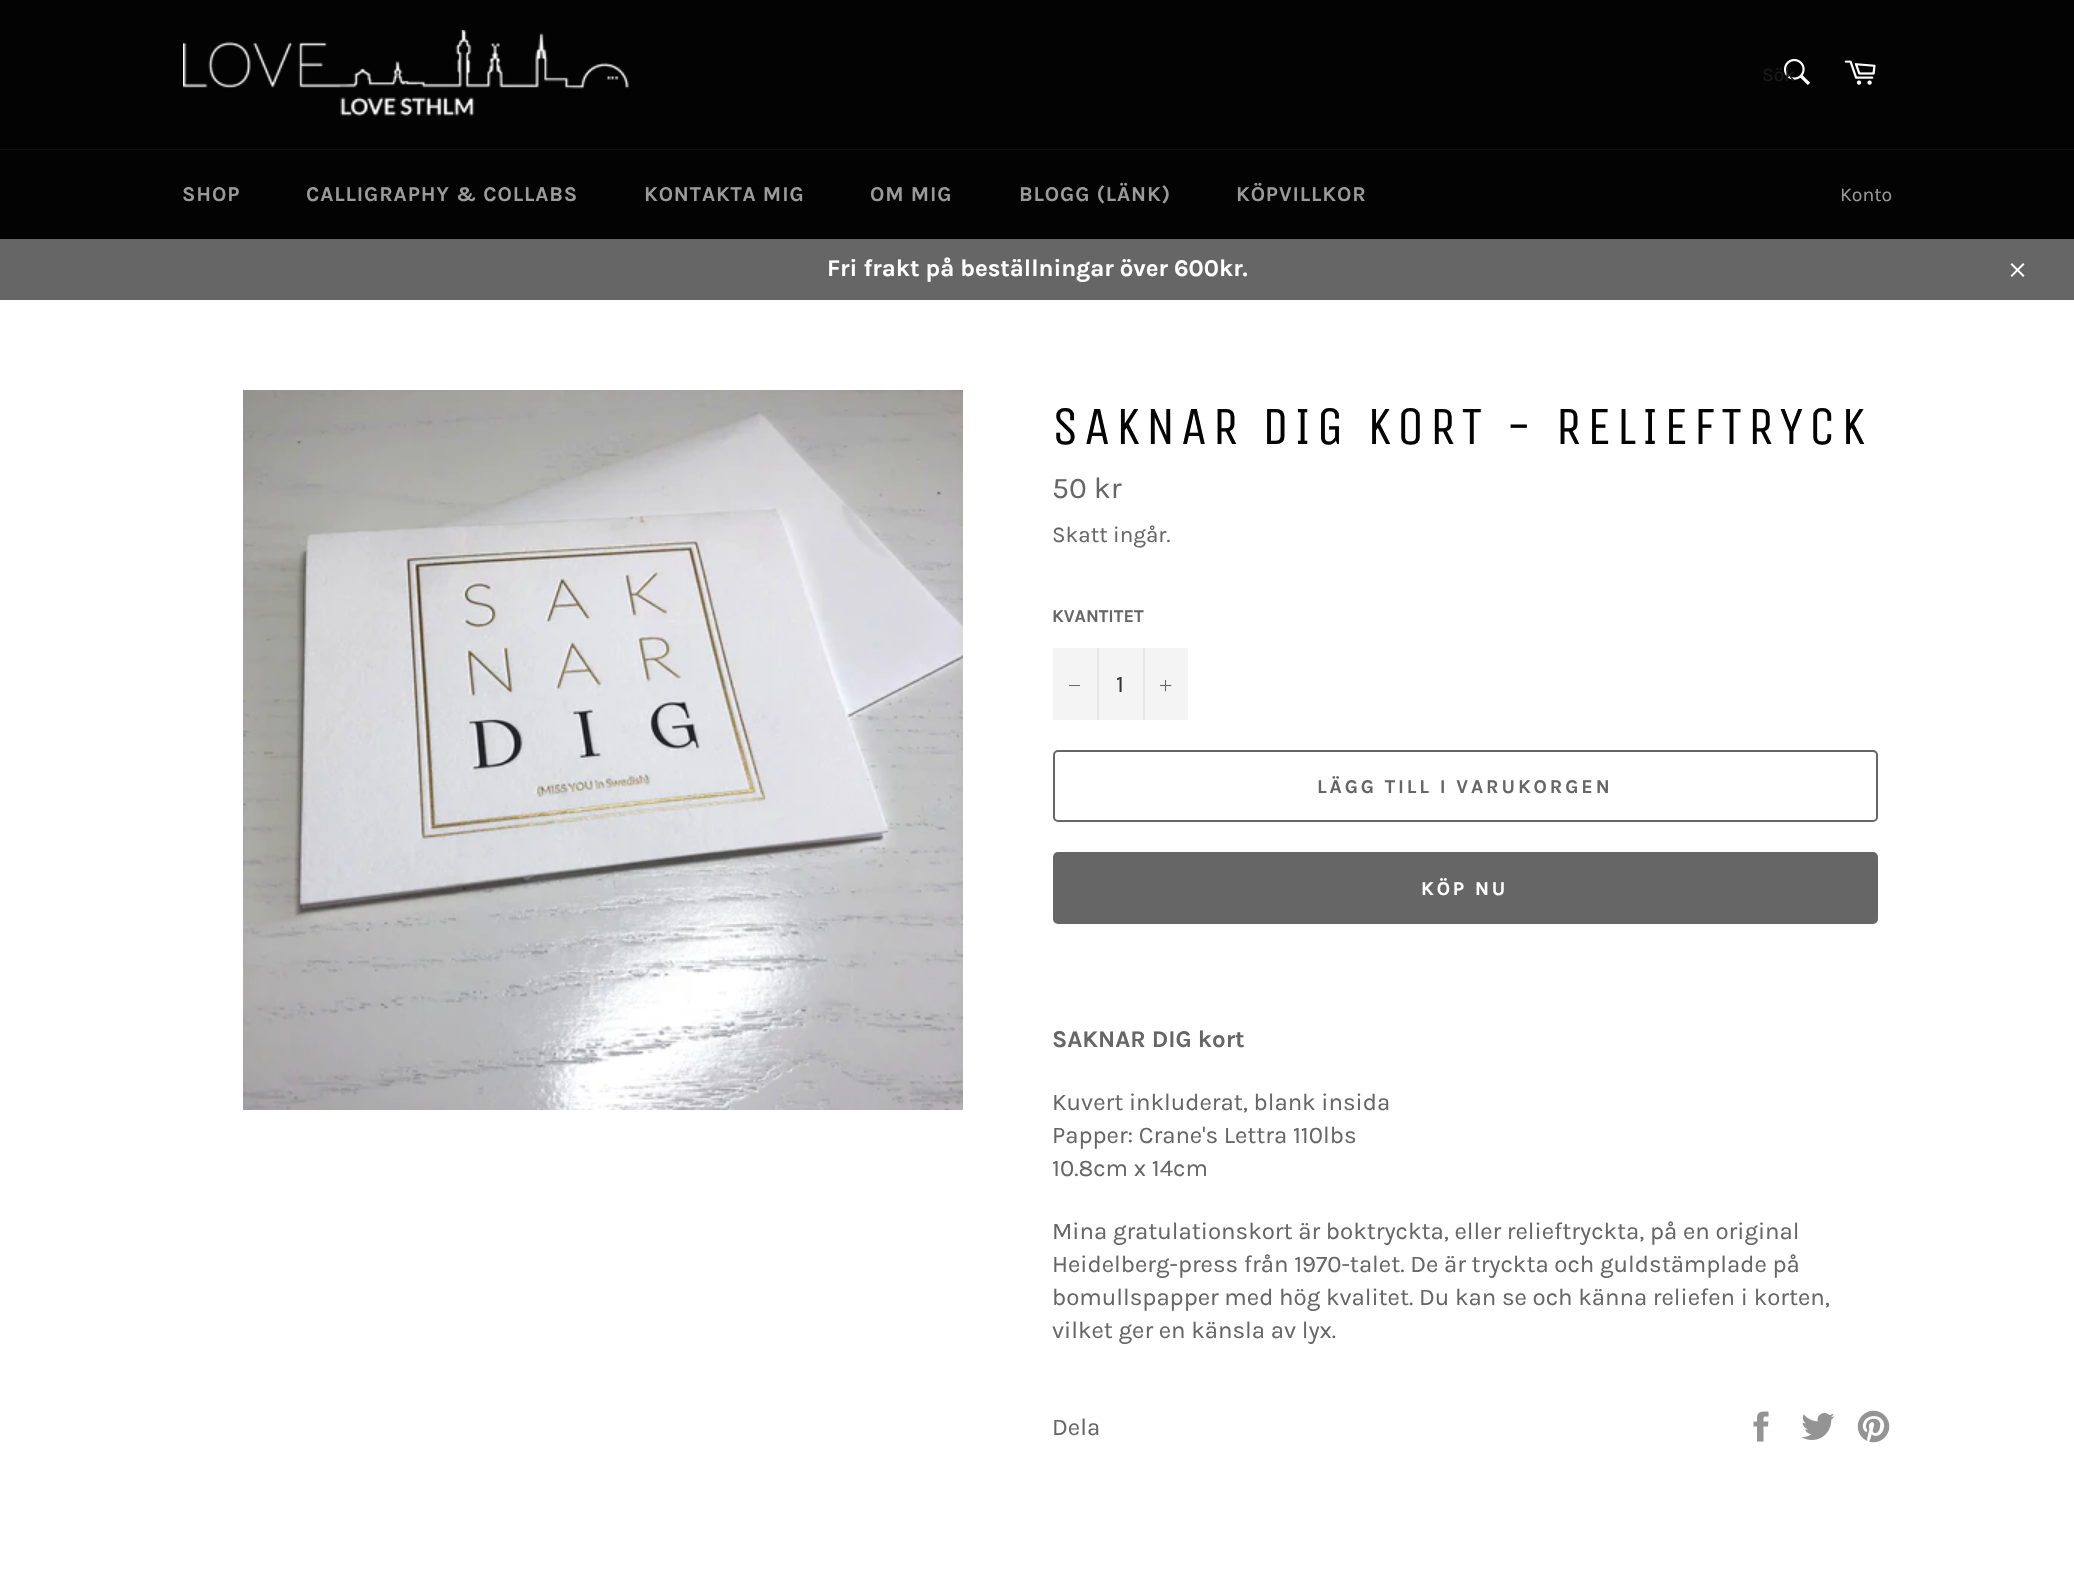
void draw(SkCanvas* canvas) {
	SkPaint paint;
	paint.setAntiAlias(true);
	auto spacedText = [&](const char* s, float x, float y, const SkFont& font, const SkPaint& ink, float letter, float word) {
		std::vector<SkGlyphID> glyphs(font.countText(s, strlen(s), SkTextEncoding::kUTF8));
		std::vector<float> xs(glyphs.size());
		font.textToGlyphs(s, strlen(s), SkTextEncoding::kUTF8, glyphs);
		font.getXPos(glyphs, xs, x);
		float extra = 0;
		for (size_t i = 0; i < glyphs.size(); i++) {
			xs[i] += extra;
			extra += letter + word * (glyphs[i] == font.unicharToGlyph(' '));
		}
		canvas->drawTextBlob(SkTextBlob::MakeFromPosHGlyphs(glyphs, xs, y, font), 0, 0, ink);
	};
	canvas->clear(0xffffffff);
	paint.setColor(0xff030303);
	canvas->drawRect(SkRect::MakeXYWH(0, 0, 2074, 149), paint);
	canvas->drawImageRect(SkImages::DeferredFromEncodedData(SkData::MakeFromFileName("img1.png")), SkRect::MakeXYWH(183, 30, 446, 86), SkSamplingOptions());
	canvas->drawImageRect(SkImages::DeferredFromEncodedData(SkData::MakeFromFileName("img2.png")), SkRect::MakeXYWH(1783, 58, 27, 27), SkSamplingOptions());
	SkFont f1(fontMgr->matchFamilyStyle("Karla", SkFontStyle::Normal()), 19.5);
	f1.setSubpixel(true);
	paint.setColor(0xff1a1a1a);
	canvas->drawString("Sök", 1762, 81, f1, paint);
	canvas->drawImageRect(SkImages::DeferredFromEncodedData(SkData::MakeFromFileName("img3.png")), SkRect::MakeXYWH(1844, 60, 32, 25), SkSamplingOptions());
	paint.setColor(0xff101010);
	canvas->drawRect(SkRect::MakeXYWH(0, 149, 2074, 1), paint);
	paint.setColor(0xff030303);
	canvas->drawRect(SkRect::MakeXYWH(0, 150, 2074, 89), paint);
	SkFont f2(fontMgr->matchFamilyStyle("Karla", SkFontStyle::Bold()), 21);
	f2.setSubpixel(true);
	paint.setColor(0xff9a9a9a);
	spacedText("SHOP", 182, 201, f2, paint, 0.9, 0);
	spacedText("CALLIGRAPHY & COLLABS", 306, 201, f2, paint, 0.9, 0);
	spacedText("KONTAKTA MIG", 644, 201, f2, paint, 0.9, 0);
	spacedText("OM MIG", 870, 201, f2, paint, 0.9, 0);
	spacedText("BLOGG (LÄNK)", 1019, 201, f2, paint, 0.9, 0);
	spacedText("KÖPVILLKOR", 1236, 201, f2, paint, 0.9, 0);
	canvas->drawString("Konto", 1840, 201, f1, paint);
	paint.setColor(0xff666666);
	canvas->drawRect(SkRect::MakeXYWH(0, 239, 2074, 61), paint);
	SkFont f3(fontMgr->matchFamilyStyle("Karla", SkFontStyle::Bold()), 24);
	f3.setSubpixel(true);
	paint.setColor(0xffffffff);
	canvas->drawString("Fri frakt på beställningar över 600kr.", 827, 276, f3, paint);
	canvas->drawImageRect(SkImages::DeferredFromEncodedData(SkData::MakeFromFileName("img4.png")), SkRect::MakeXYWH(2010, 263, 15, 14), SkSamplingOptions());
	canvas->drawImageRect(SkImages::DeferredFromEncodedData(SkData::MakeFromFileName("img5.png")), SkRect::MakeXYWH(243, 390, 720, 720), SkSamplingOptions());
	SkFont f4(fontMgr->matchFamilyStyle("Unica One", SkFontStyle::Normal()), 54);
	f4.setSubpixel(true);
	paint.setColor(0xff030303);
	spacedText("SAKNAR DIG KORT - RELIEFTRYCK", 1052, 444, f4, paint, 5.4, 0);
	SkFont f5(fontMgr->matchFamilyStyle("Karla", SkFontStyle::Normal()), 30);
	f5.setSubpixel(true);
	paint.setColor(0xff666666);
	canvas->drawString("50 kr", 1052, 498, f5, paint);
	SkFont f6(fontMgr->matchFamilyStyle("Karla", SkFontStyle::Normal()), 22.5);
	f6.setSubpixel(true);
	canvas->drawString("Skatt ingår.", 1052, 542, f6, paint);
	SkFont f7(fontMgr->matchFamilyStyle("Karla", SkFontStyle::Bold()), 18);
	f7.setSubpixel(true);
	canvas->drawString("KVANTITET", 1052, 622, f7, paint);
	paint.setColor(0xfff4f4f4);
	canvas->drawRect(SkRect::MakeXYWH(1053, 648, 135, 72), paint);
	paint.setColor(0xffe7e7e7);
	canvas->drawRect(SkRect::MakeXYWH(1097, 648, 2, 72), paint);
	paint.setColor(0xff666666);
	canvas->drawRect(SkRect::MakeXYWH(1069, 685, 11, 1), paint);
	SkFont f8(fontMgr->matchFamilyStyle("Karla", SkFontStyle::Normal()), 24);
	f8.setSubpixel(true);
	paint.setColor(0xff333333);
	canvas->drawString("1", 1116, 692, f8, paint);
	paint.setColor(0xffe7e7e7);
	canvas->drawRect(SkRect::MakeXYWH(1143, 648, 2, 72), paint);
	canvas->drawImageRect(SkImages::DeferredFromEncodedData(SkData::MakeFromFileName("img6.png")), SkRect::MakeXYWH(1160, 680, 12, 12), SkSamplingOptions());
	paint.setStroke(true);
	paint.setStrokeWidth(2);
	paint.setColor(0xff666666);
	canvas->drawRoundRect(SkRect::MakeXYWH(1054, 751, 823, 70), 4, 4, paint);
	SkFont f9(fontMgr->matchFamilyStyle("Karla", SkFontStyle::Bold()), 19.5);
	f9.setSubpixel(true);
	paint.setStroke(false);
	spacedText("LÄGG TILL I VARUKORGEN", 1317, 793, f9, paint, 2.9, 0);
	canvas->drawRoundRect(SkRect::MakeXYWH(1053, 852, 825, 72), 5, 5, paint);
	paint.setColor(0xffffffff);
	spacedText("KÖP NU", 1421, 895, f9, paint, 2.9, 0);
	paint.setColor(0xff666666);
	canvas->drawString("SAKNAR DIG kort", 1052, 1047, f3, paint);
	canvas->drawString("Kuvert inkluderat, blank insida", 1052, 1110, f8, paint);
	canvas->drawString("Papper: Crane's Lettra 110lbs", 1052, 1143, f8, paint);
	canvas->drawString("10.8cm x 14cm", 1052, 1176, f8, paint);
	canvas->drawString("Mina gratulationskort är boktryckta, eller relieftryckta, på en original", 1052, 1239, f8, paint);
	canvas->drawString("Heidelberg-press från 1970-talet. De är tryckta och guldstämplade på", 1052, 1272, f8, paint);
	canvas->drawString("bomullspapper med hög kvalitet. Du kan se och känna reliefen i korten,", 1052, 1305, f8, paint);
	canvas->drawString("vilket ger en känsla av lyx.", 1052, 1338, f8, paint);
	canvas->drawString("Dela", 1052, 1435, f8, paint);
	canvas->drawImageRect(SkImages::DeferredFromEncodedData(SkData::MakeFromFileName("img7.png")), SkRect::MakeXYWH(1753, 1411, 16, 31), SkSamplingOptions());
	canvas->drawImageRect(SkImages::DeferredFromEncodedData(SkData::MakeFromFileName("img8.png")), SkRect::MakeXYWH(1801, 1413, 34, 27), SkSamplingOptions());
	canvas->drawImageRect(SkImages::DeferredFromEncodedData(SkData::MakeFromFileName("img9.png")), SkRect::MakeXYWH(1857, 1410, 33, 33), SkSamplingOptions());
}
